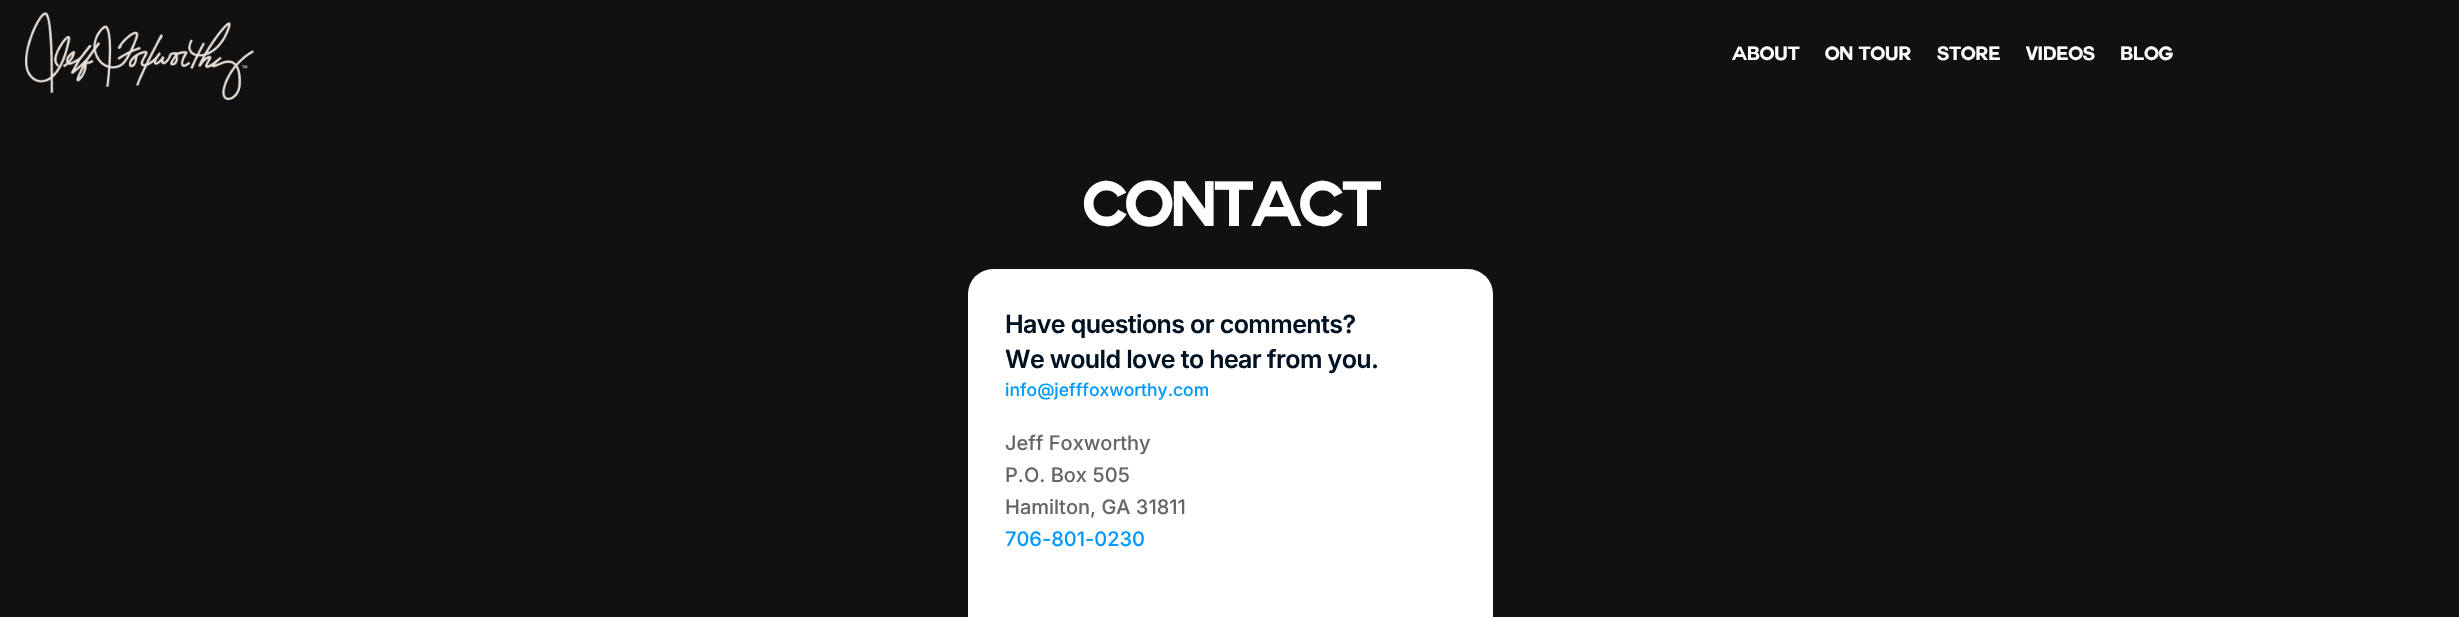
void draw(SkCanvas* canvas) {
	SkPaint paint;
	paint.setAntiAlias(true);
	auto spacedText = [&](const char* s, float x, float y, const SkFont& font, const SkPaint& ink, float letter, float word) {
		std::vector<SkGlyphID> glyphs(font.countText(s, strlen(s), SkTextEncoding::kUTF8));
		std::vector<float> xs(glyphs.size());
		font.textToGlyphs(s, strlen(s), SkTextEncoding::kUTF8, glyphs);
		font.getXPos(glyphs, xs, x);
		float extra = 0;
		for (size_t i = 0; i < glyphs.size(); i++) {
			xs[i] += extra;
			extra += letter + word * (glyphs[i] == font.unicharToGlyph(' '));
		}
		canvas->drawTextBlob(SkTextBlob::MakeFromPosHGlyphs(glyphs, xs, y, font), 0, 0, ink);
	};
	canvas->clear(0xff111111);
	canvas->drawImageRect(SkImages::DeferredFromEncodedData(SkData::MakeFromFileName("img1.png")), SkRect::MakeXYWH(25, 12, 229, 88), SkSamplingOptions());
	SkFont f1(fontMgr->matchFamilyStyle("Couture", SkFontStyle::Bold()), 18.75);
	f1.setSubpixel(true);
	paint.setColor(0xffffffff);
	spacedText("About", 1732, 60, f1, paint, -0.25, 0);
	spacedText("On Tour", 1825, 60, f1, paint, -0.25, 0);
	spacedText("Store", 1937, 60, f1, paint, -0.25, 0);
	spacedText("Videos", 2026, 60, f1, paint, -0.25, 0);
	spacedText("Blog", 2120, 60, f1, paint, -0.25, 0);
	SkFont f2(fontMgr->matchFamilyStyle("Couture", SkFontStyle::Bold()), 62.5);
	f2.setSubpixel(true);
	spacedText("Contact", 1082, 226, f2, paint, -3.25, 0);
	canvas->drawRoundRect(SkRect::MakeXYWH(968, 269, 525, 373), 25, 25, paint);
	SkFont f3(fontMgr->matchFamilyStyle("Inter", SkFontStyle(600, SkFontStyle::kNormal_Width, SkFontStyle::kUpright_Slant)), 25);
	f3.setSubpixel(true);
	paint.setColor(0xff001122);
	spacedText("Have questions or comments?", 1005, 333, f3, paint, -0.6, 0);
	spacedText("We would love to hear from you.", 1005, 368, f3, paint, -0.6, 0);
	SkFont f4(fontMgr->matchFamilyStyle("Inter", SkFontStyle(500, SkFontStyle::kNormal_Width, SkFontStyle::kUpright_Slant)), 17.5);
	f4.setSubpixel(true);
	paint.setColor(0xff0099ff);
	canvas->drawString("info@jefffoxworthy.com", 1005, 396, f4, paint);
	SkFont f5(fontMgr->matchFamilyStyle("Inter", SkFontStyle(500, SkFontStyle::kNormal_Width, SkFontStyle::kUpright_Slant)), 20);
	f5.setSubpixel(true);
	paint.setColor(0xff666666);
	canvas->drawString("Jeff Foxworthy", 1005, 450, f5, paint);
	canvas->drawString("P.O. Box 505", 1005, 482, f5, paint);
	canvas->drawString("Hamilton, GA 31811", 1005, 514, f5, paint);
	paint.setColor(0xff0099ff);
	canvas->drawString("706-801-0230", 1005, 546, f5, paint);
}
